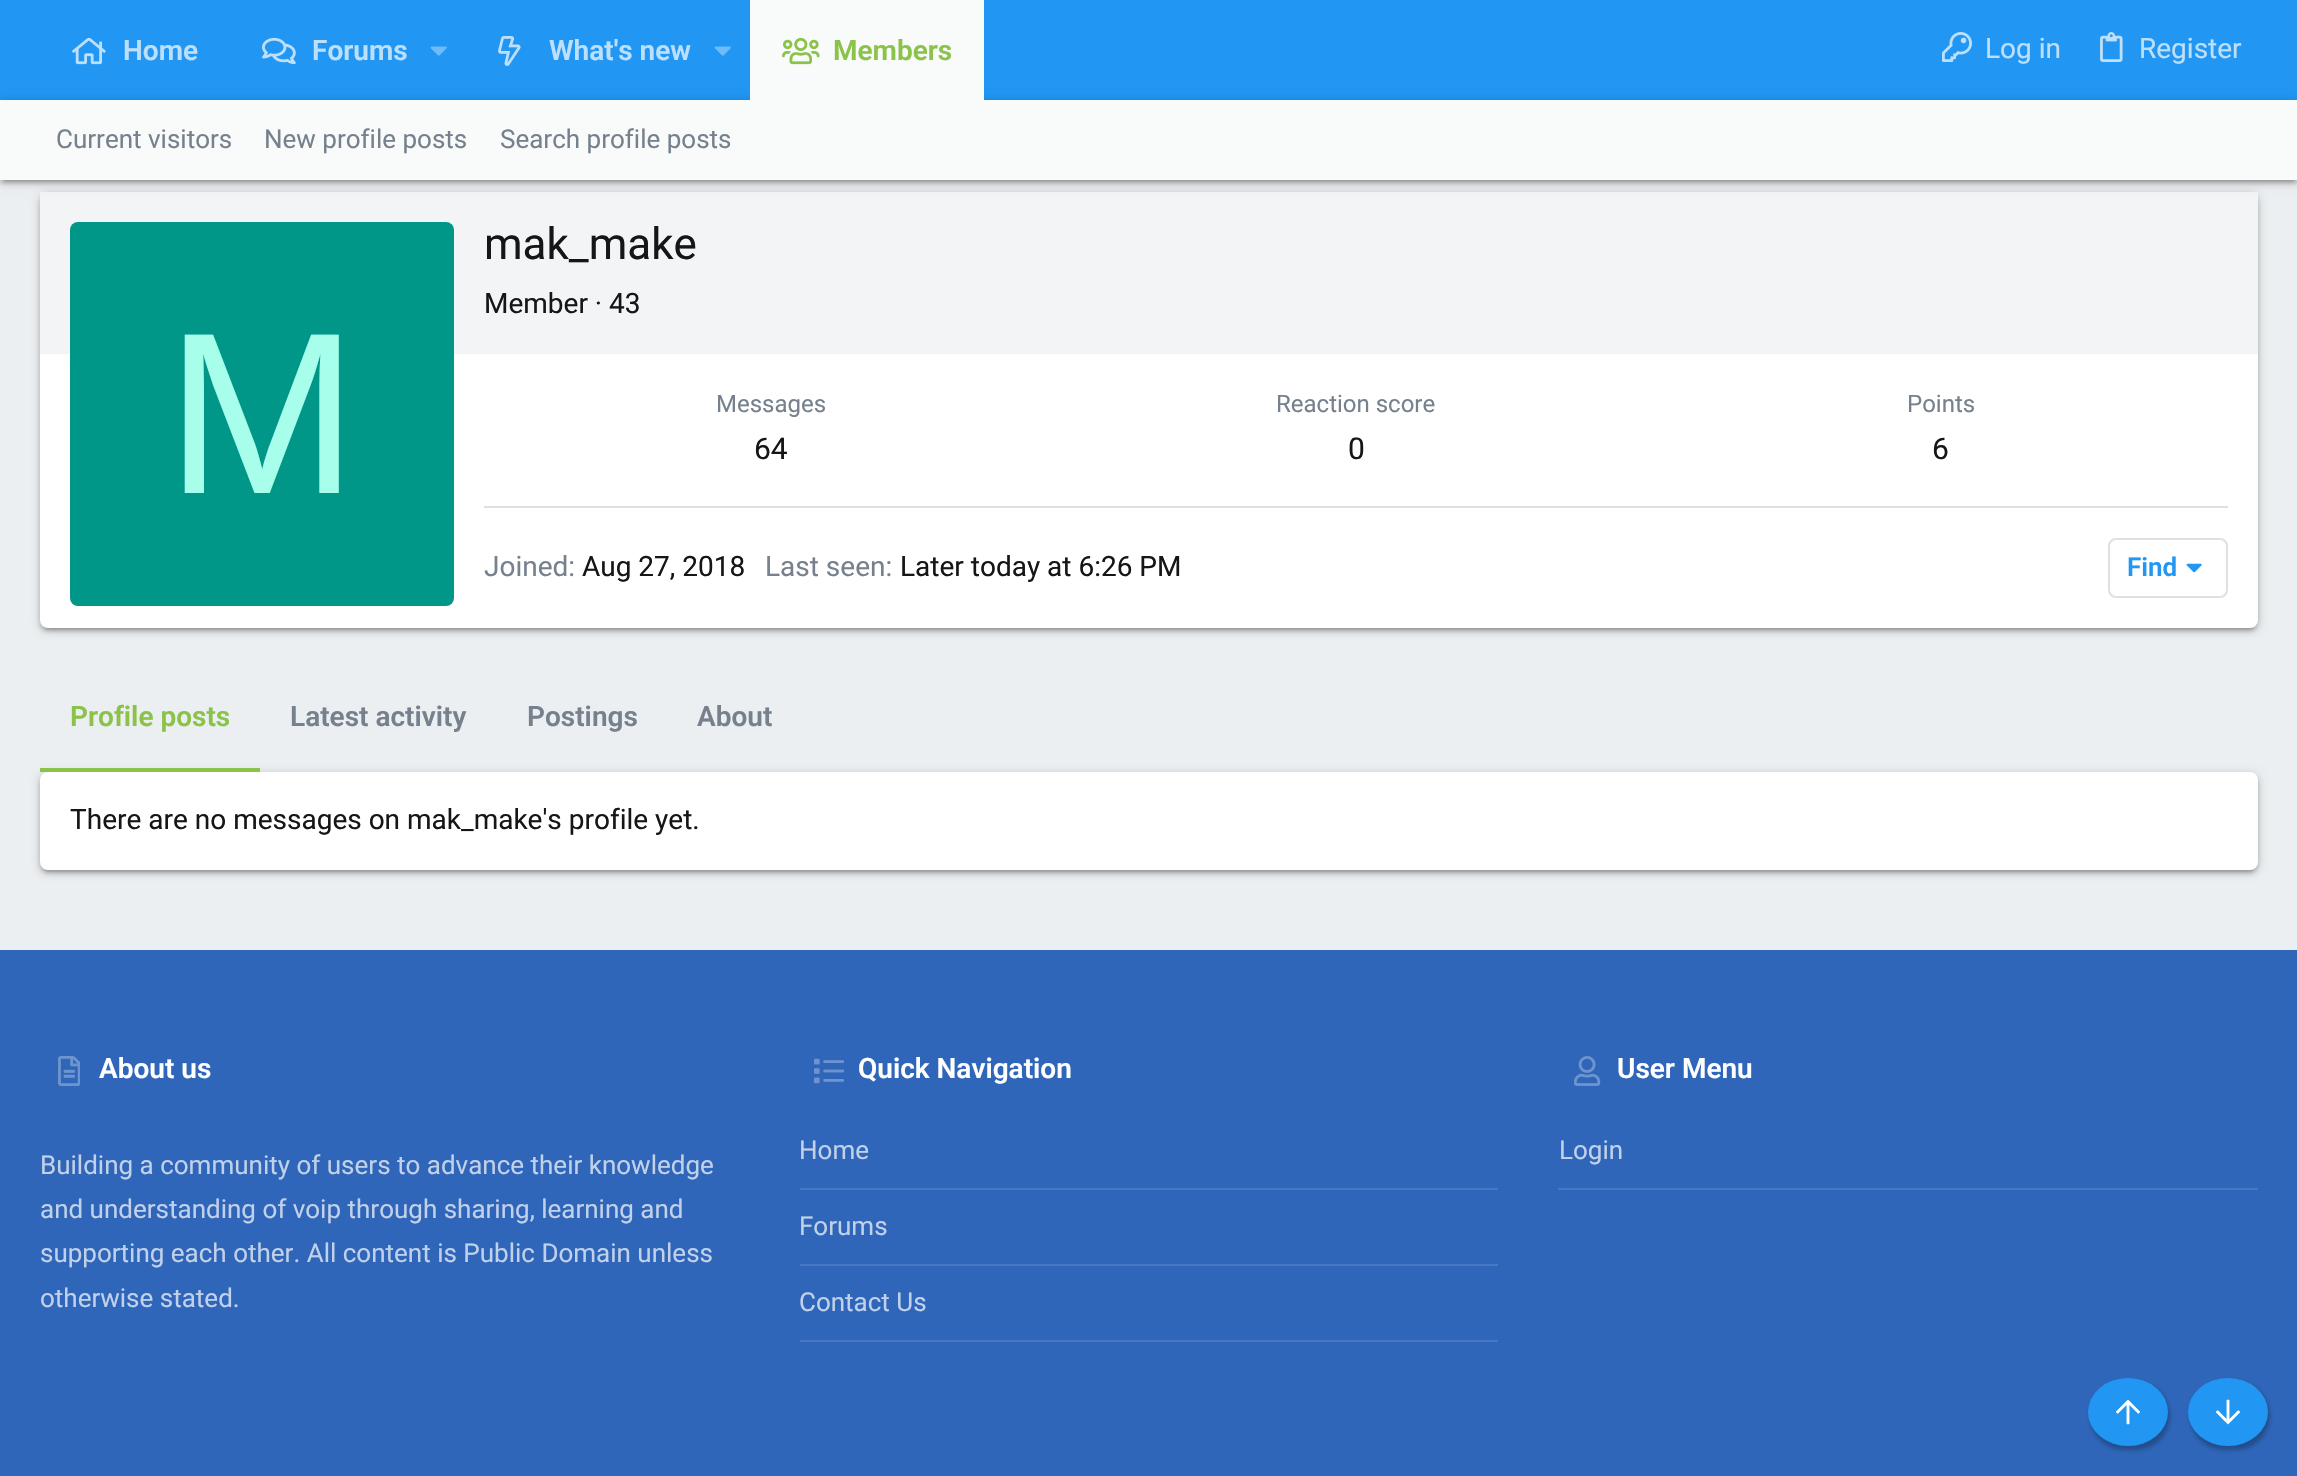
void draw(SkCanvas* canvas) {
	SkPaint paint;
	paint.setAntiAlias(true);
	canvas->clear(0xffeceff1);
	paint.setColor(0xff2196f3);
	canvas->drawRect(SkRect::MakeXYWH(0, 0, 2297, 100), paint);
	canvas->drawImageRect(SkImages::DeferredFromEncodedData(SkData::MakeFromFileName("img1.png")), SkRect::MakeXYWH(72, 37, 34, 28), SkSamplingOptions());
	SkFont f1(fontMgr->matchFamilyStyle("Roboto", SkFontStyle(600, SkFontStyle::kNormal_Width, SkFontStyle::kUpright_Slant)), 28);
	f1.setSubpixel(true);
	paint.setColor(0xffbce0fb);
	canvas->drawString("Home", 123, 60, f1, paint);
	canvas->drawImageRect(SkImages::DeferredFromEncodedData(SkData::MakeFromFileName("img2.png")), SkRect::MakeXYWH(262, 37, 34, 28), SkSamplingOptions());
	canvas->drawString("Forums", 312, 60, f1, paint);
	canvas->drawImageRect(SkImages::DeferredFromEncodedData(SkData::MakeFromFileName("img3.png")), SkRect::MakeXYWH(430, 46, 17, 10), SkSamplingOptions());
	canvas->drawImageRect(SkImages::DeferredFromEncodedData(SkData::MakeFromFileName("img4.png")), SkRect::MakeXYWH(498, 36, 23, 30), SkSamplingOptions());
	canvas->drawString("What's new", 549, 60, f1, paint);
	canvas->drawImageRect(SkImages::DeferredFromEncodedData(SkData::MakeFromFileName("img3.png")), SkRect::MakeXYWH(714, 46, 17, 10), SkSamplingOptions());
	paint.setColor(0x33000000);
	paint.setMaskFilter(SkMaskFilter::MakeBlur(kNormal_SkBlurStyle, 5));
	canvas->drawRoundRect(SkRect::MakeXYWH(40, 194, 2218, 436), 8, 8, paint);
	paint.setMaskFilter(nullptr);
	paint.setColor(0x1f000000);
	paint.setMaskFilter(SkMaskFilter::MakeBlur(kNormal_SkBlurStyle, 1));
	canvas->drawRoundRect(SkRect::MakeXYWH(44, 202, 2210, 428), 4, 4, paint);
	paint.setMaskFilter(nullptr);
	paint.setColor(0x24000000);
	paint.setMaskFilter(SkMaskFilter::MakeBlur(kNormal_SkBlurStyle, 2));
	canvas->drawRoundRect(SkRect::MakeXYWH(40, 196, 2218, 436), 8, 8, paint);
	paint.setMaskFilter(nullptr);
	paint.setColor(0xffffffff);
	canvas->drawRoundRect(SkRect::MakeXYWH(40, 192, 2218, 436), 8, 8, paint);
	paint.setColor(0xfff3f4f5);
	canvas->drawRect(SkRect::MakeXYWH(40, 192, 2218, 162), paint);
	paint.setColor(0x33000000);
	paint.setMaskFilter(SkMaskFilter::MakeBlur(kNormal_SkBlurStyle, 5));
	canvas->drawRect(SkRect::MakeXYWH(0, 102, 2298, 80), paint);
	paint.setMaskFilter(nullptr);
	paint.setColor(0x24000000);
	paint.setMaskFilter(SkMaskFilter::MakeBlur(kNormal_SkBlurStyle, 2));
	canvas->drawRect(SkRect::MakeXYWH(0, 104, 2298, 80), paint);
	paint.setMaskFilter(nullptr);
	paint.setColor(0xfff9fafa);
	canvas->drawRect(SkRect::MakeXYWH(750, 0, 234, 100), paint);
	canvas->drawImageRect(SkImages::DeferredFromEncodedData(SkData::MakeFromFileName("img5.png")), SkRect::MakeXYWH(782, 37, 38, 28), SkSamplingOptions());
	paint.setColor(0xff8bc34a);
	canvas->drawString("Members", 833, 60, f1, paint);
	canvas->drawImageRect(SkImages::DeferredFromEncodedData(SkData::MakeFromFileName("img6.png")), SkRect::MakeXYWH(1942, 32, 30, 30), SkSamplingOptions());
	SkFont f2(fontMgr->matchFamilyStyle("Roboto", SkFontStyle::Normal()), 28);
	f2.setSubpixel(true);
	paint.setColor(0xffbce0fb);
	canvas->drawString("Log in", 1985, 58, f2, paint);
	canvas->drawImageRect(SkImages::DeferredFromEncodedData(SkData::MakeFromFileName("img7.png")), SkRect::MakeXYWH(2100, 32, 23, 30), SkSamplingOptions());
	canvas->drawString("Register", 2139, 58, f2, paint);
	paint.setColor(0x1f000000);
	paint.setMaskFilter(SkMaskFilter::MakeBlur(kNormal_SkBlurStyle, 1));
	canvas->drawRect(SkRect::MakeXYWH(4, 110, 2290, 72), paint);
	paint.setMaskFilter(nullptr);
	paint.setColor(0xfff9fafa);
	canvas->drawRect(SkRect::MakeXYWH(0, 100, 2297, 80), paint);
	SkFont f3(fontMgr->matchFamilyStyle("Roboto", SkFontStyle::Normal()), 26);
	f3.setSubpixel(true);
	paint.setColor(0xff76818d);
	canvas->drawString("Current visitors", 56, 148, f3, paint);
	canvas->drawString("New profile posts", 264, 148, f3, paint);
	canvas->drawString("Search profile posts", 500, 148, f3, paint);
	SkFont f4(fontMgr->matchFamilyStyle("Roboto", SkFontStyle::Normal()), 44);
	f4.setSubpixel(true);
	paint.setColor(0xff141618);
	canvas->drawString("mak_make", 484, 259, f4, paint);
	canvas->drawString("Member · 43", 484, 313, f2, paint);
	paint.setColor(0xff009688);
	canvas->drawRoundRect(SkRect::MakeXYWH(70, 222, 384, 384), 8, 8, paint);
	SkFont f5(fontMgr->matchFamilyStyle("Liberation Sans", SkFontStyle::Normal()), 230);
	f5.setSubpixel(true);
	paint.setColor(0xffa7ffeb);
	canvas->drawString("M", 166, 493, f5, paint);
	SkFont f6(fontMgr->matchFamilyStyle("Roboto", SkFontStyle::Normal()), 24);
	f6.setSubpixel(true);
	paint.setColor(0xff76818d);
	canvas->drawString("Messages", 716, 412, f6, paint);
	SkFont f7(fontMgr->matchFamilyStyle("Roboto", SkFontStyle::Normal()), 30);
	f7.setSubpixel(true);
	paint.setColor(0xff141618);
	canvas->drawString("64", 754, 459, f7, paint);
	paint.setColor(0xff76818d);
	canvas->drawString("Reaction score", 1276, 412, f6, paint);
	paint.setColor(0xff141618);
	canvas->drawString("0", 1348, 459, f7, paint);
	paint.setColor(0xff76818d);
	canvas->drawString("Points", 1907, 412, f6, paint);
	paint.setColor(0xff141618);
	canvas->drawString("6", 1932, 459, f7, paint);
	paint.setColor(0xffe0e0e0);
	canvas->drawRect(SkRect::MakeXYWH(484, 506, 1744, 2), paint);
	paint.setColor(0xff76818d);
	canvas->drawString("Joined:", 484, 576, f2, paint);
	paint.setColor(0xff141618);
	canvas->drawString("Aug 27, 2018", 582, 576, f2, paint);
	paint.setColor(0xff76818d);
	canvas->drawString("Last seen:", 765, 576, f2, paint);
	paint.setColor(0xff141618);
	canvas->drawString("Later today at 6:26 PM", 900, 576, f2, paint);
	paint.setStroke(true);
	paint.setStrokeWidth(2);
	paint.setColor(0xffe0e0e0);
	canvas->drawRoundRect(SkRect::MakeXYWH(2109, 539, 118, 58), 7, 7, paint);
	SkFont f8(fontMgr->matchFamilyStyle("Roboto", SkFontStyle(600, SkFontStyle::kNormal_Width, SkFontStyle::kUpright_Slant)), 26);
	f8.setSubpixel(true);
	paint.setStroke(false);
	paint.setColor(0xff2196f3);
	canvas->drawString("Find", 2127, 576, f8, paint);
	canvas->drawImageRect(SkImages::DeferredFromEncodedData(SkData::MakeFromFileName("img8.png")), SkRect::MakeXYWH(2186, 563, 16, 10), SkSamplingOptions());
	paint.setColor(0x33000000);
	paint.setMaskFilter(SkMaskFilter::MakeBlur(kNormal_SkBlurStyle, 5));
	canvas->drawRoundRect(SkRect::MakeXYWH(40, 774, 2218, 98), 8, 8, paint);
	paint.setMaskFilter(nullptr);
	paint.setColor(0x24000000);
	paint.setMaskFilter(SkMaskFilter::MakeBlur(kNormal_SkBlurStyle, 2));
	canvas->drawRoundRect(SkRect::MakeXYWH(40, 776, 2218, 98), 8, 8, paint);
	paint.setMaskFilter(nullptr);
	paint.setColor(0xff8bc34a);
	canvas->drawRect(SkRect::MakeXYWH(40, 768, 220, 4), paint);
	canvas->drawString("Profile posts", 70, 726, f1, paint);
	paint.setColor(0xff76818d);
	canvas->drawString("Latest activity", 290, 726, f1, paint);
	canvas->drawString("Postings", 527, 726, f1, paint);
	canvas->drawString("About", 697, 726, f1, paint);
	paint.setColor(0x1f000000);
	paint.setMaskFilter(SkMaskFilter::MakeBlur(kNormal_SkBlurStyle, 1));
	canvas->drawRoundRect(SkRect::MakeXYWH(44, 782, 2210, 90), 4, 4, paint);
	paint.setMaskFilter(nullptr);
	paint.setColor(0xffffffff);
	canvas->drawRoundRect(SkRect::MakeXYWH(40, 772, 2218, 98), 8, 8, paint);
	paint.setColor(0xff141618);
	canvas->drawString("There are no messages on mak_make's profile yet.", 70, 829, f2, paint);
	paint.setColor(0xff2f66b9);
	canvas->drawRect(SkRect::MakeXYWH(0, 950, 2297, 526), paint);
	canvas->drawImageRect(SkImages::DeferredFromEncodedData(SkData::MakeFromFileName("img9.png")), SkRect::MakeXYWH(58, 1056, 22, 30), SkSamplingOptions());
	paint.setColor(0xffffffff);
	canvas->drawString("About us", 99, 1078, f1, paint);
	paint.setColor(0xffc1d1ea);
	canvas->drawString("Building a community of users to advance their knowledge", 40, 1174, f3, paint);
	canvas->drawString("and understanding of voip through sharing, learning and", 40, 1218, f3, paint);
	canvas->drawString("supporting each other. All content is Public Domain unless", 40, 1262, f3, paint);
	canvas->drawString("otherwise stated.", 40, 1307, f3, paint);
	canvas->drawImageRect(SkImages::DeferredFromEncodedData(SkData::MakeFromFileName("img10.png")), SkRect::MakeXYWH(814, 1058, 30, 26), SkSamplingOptions());
	paint.setColor(0xffffffff);
	canvas->drawString("Quick Navigation", 858, 1078, f1, paint);
	paint.setColor(0xff4878c1);
	canvas->drawRect(SkRect::MakeXYWH(800, 1188, 698, 2), paint);
	paint.setColor(0xffc1d1ea);
	canvas->drawString("Home", 799, 1159, f3, paint);
	paint.setColor(0xff4878c1);
	canvas->drawRect(SkRect::MakeXYWH(800, 1264, 698, 2), paint);
	paint.setColor(0xffc1d1ea);
	canvas->drawString("Forums", 799, 1235, f3, paint);
	paint.setColor(0xff4878c1);
	canvas->drawRect(SkRect::MakeXYWH(800, 1340, 698, 2), paint);
	paint.setColor(0xffc1d1ea);
	canvas->drawString("Contact Us", 799, 1311, f3, paint);
	canvas->drawImageRect(SkImages::DeferredFromEncodedData(SkData::MakeFromFileName("img11.png")), SkRect::MakeXYWH(1574, 1056, 27, 30), SkSamplingOptions());
	paint.setColor(0xffffffff);
	canvas->drawString("User Menu", 1617, 1078, f1, paint);
	paint.setColor(0xff4878c1);
	canvas->drawRect(SkRect::MakeXYWH(1558, 1188, 700, 2), paint);
	paint.setColor(0xffc1d1ea);
	canvas->drawString("Login", 1559, 1159, f3, paint);
	paint.setColor(0x40000000);
	paint.setMaskFilter(SkMaskFilter::MakeBlur(kNormal_SkBlurStyle, 2));
	canvas->drawRoundRect(SkRect::MakeXYWH(2090, 1382, 80, 68), 34, 34, paint);
	paint.setMaskFilter(nullptr);
	paint.setColor(0xff2196f3);
	canvas->drawOval(SkRect::MakeXYWH(2088, 1378, 80, 68), paint);
	canvas->drawImageRect(SkImages::DeferredFromEncodedData(SkData::MakeFromFileName("img12.png")), SkRect::MakeXYWH(2116, 1399, 24, 26), SkSamplingOptions());
	paint.setColor(0x40000000);
	paint.setMaskFilter(SkMaskFilter::MakeBlur(kNormal_SkBlurStyle, 2));
	canvas->drawRoundRect(SkRect::MakeXYWH(2190, 1382, 80, 68), 34, 34, paint);
	paint.setMaskFilter(nullptr);
	paint.setColor(0xff2196f3);
	canvas->drawOval(SkRect::MakeXYWH(2188, 1378, 80, 68), paint);
	canvas->drawImageRect(SkImages::DeferredFromEncodedData(SkData::MakeFromFileName("img13.png")), SkRect::MakeXYWH(2216, 1399, 24, 26), SkSamplingOptions());
}
